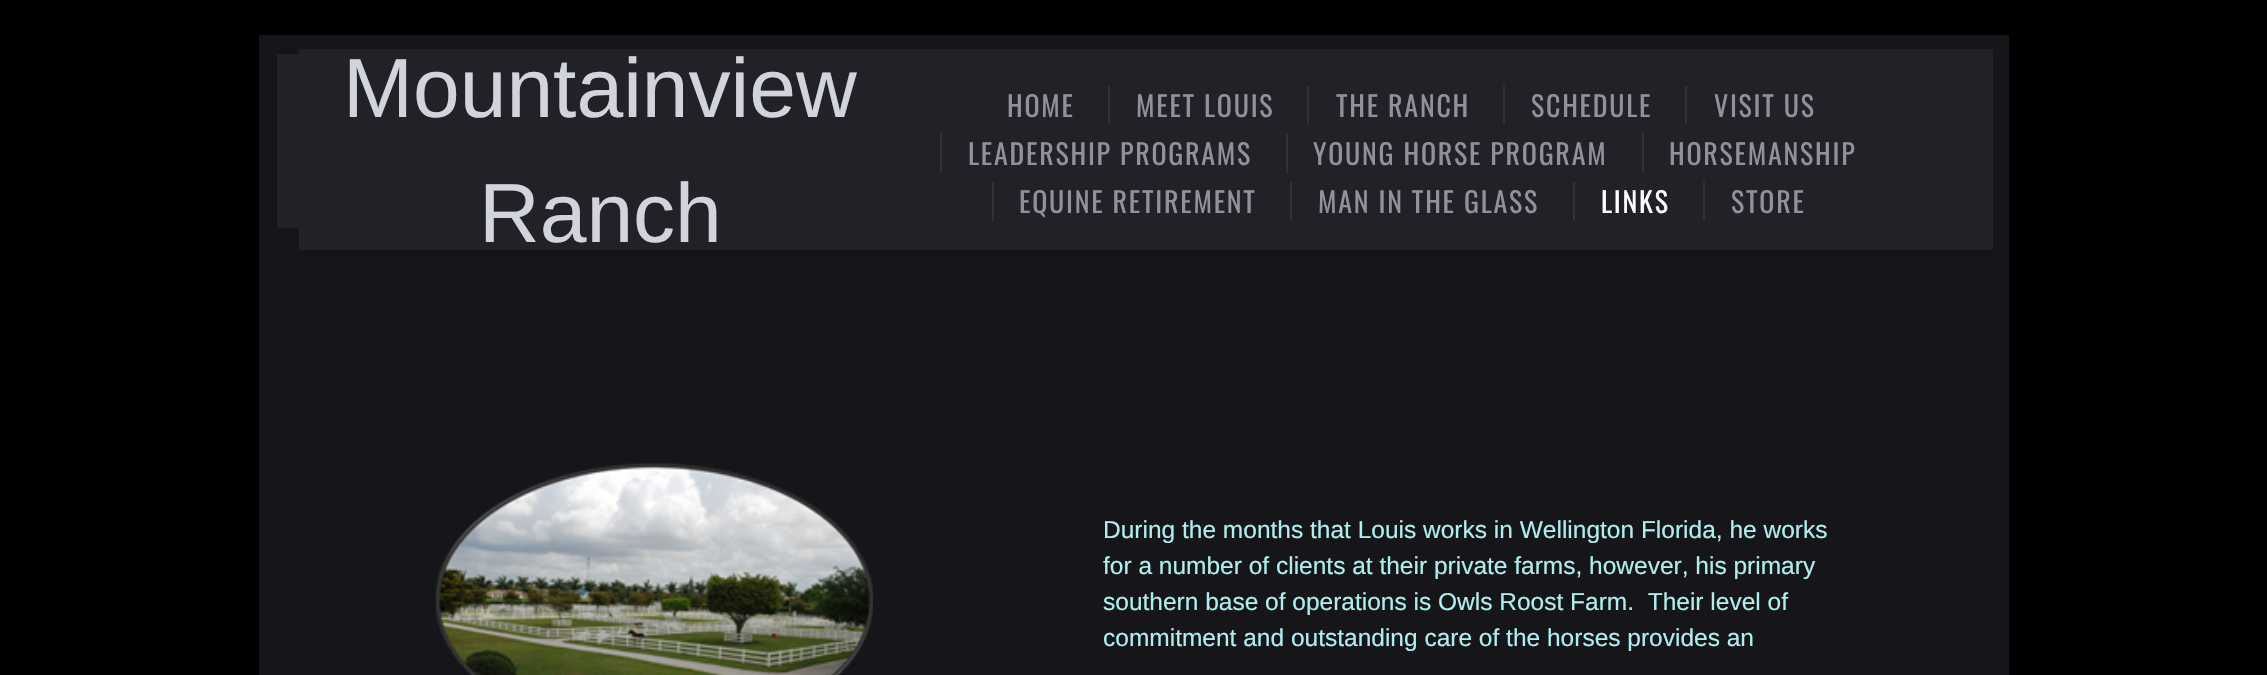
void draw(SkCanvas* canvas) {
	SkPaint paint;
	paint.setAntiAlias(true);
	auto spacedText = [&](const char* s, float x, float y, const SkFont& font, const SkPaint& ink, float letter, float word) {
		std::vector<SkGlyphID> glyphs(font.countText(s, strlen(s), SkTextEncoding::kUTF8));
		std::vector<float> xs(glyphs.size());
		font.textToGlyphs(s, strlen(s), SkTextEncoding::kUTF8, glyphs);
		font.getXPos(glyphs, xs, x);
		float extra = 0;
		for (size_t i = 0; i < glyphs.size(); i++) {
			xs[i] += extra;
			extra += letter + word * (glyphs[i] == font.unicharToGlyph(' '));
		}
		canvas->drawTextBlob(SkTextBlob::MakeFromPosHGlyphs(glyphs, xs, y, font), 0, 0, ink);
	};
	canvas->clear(0xff000000);
	paint.setColor(0xff16161a);
	canvas->drawRect(SkRect::MakeXYWH(259, 35, 1750, 640), paint);
	paint.setColor(0xff212127);
	canvas->drawRect(SkRect::MakeXYWH(277, 54, 22, 174), paint);
	canvas->drawRect(SkRect::MakeXYWH(299, 49, 1694, 201), paint);
	SkFont f1(fontMgr->matchFamilyStyle("Liberation Sans", SkFontStyle::Normal()), 84);
	f1.setSubpixel(true);
	paint.setColor(0xffd2d4db);
	canvas->drawString("Mountainview", 343, 117, f1, paint);
	canvas->drawString("Ranch", 479, 242, f1, paint);
	SkFont f2(fontMgr->matchFamilyStyle("Oswald", SkFontStyle::Normal()), 28);
	f2.setSubpixel(true);
	paint.setColor(0xff91919b);
	spacedText("HOME", 1007, 117, f2, paint, 1.75, 0);
	paint.setColor(0xff31313a);
	canvas->drawRect(SkRect::MakeXYWH(1108, 86, 2, 38), paint);
	paint.setColor(0xff91919b);
	spacedText("MEET LOUIS", 1136, 117, f2, paint, 1.75, 0);
	paint.setColor(0xff31313a);
	canvas->drawRect(SkRect::MakeXYWH(1307, 86, 2, 38), paint);
	paint.setColor(0xff91919b);
	spacedText("THE RANCH", 1336, 117, f2, paint, 1.75, 0);
	paint.setColor(0xff31313a);
	canvas->drawRect(SkRect::MakeXYWH(1503, 86, 2, 38), paint);
	paint.setColor(0xff91919b);
	spacedText("SCHEDULE", 1531, 117, f2, paint, 1.75, 0);
	paint.setColor(0xff31313a);
	canvas->drawRect(SkRect::MakeXYWH(1685, 86, 2, 38), paint);
	paint.setColor(0xff91919b);
	spacedText("VISIT US", 1714, 117, f2, paint, 1.75, 0);
	paint.setColor(0xff31313a);
	canvas->drawRect(SkRect::MakeXYWH(940, 133, 2, 40), paint);
	paint.setColor(0xff91919b);
	spacedText("LEADERSHIP PROGRAMS", 968, 165, f2, paint, 1.75, 0);
	paint.setColor(0xff31313a);
	canvas->drawRect(SkRect::MakeXYWH(1286, 133, 2, 40), paint);
	paint.setColor(0xff91919b);
	spacedText("YOUNG HORSE PROGRAM", 1313, 165, f2, paint, 1.75, 0);
	paint.setColor(0xff31313a);
	canvas->drawRect(SkRect::MakeXYWH(1642, 133, 2, 40), paint);
	paint.setColor(0xff91919b);
	spacedText("HORSEMANSHIP", 1669, 165, f2, paint, 1.75, 0);
	paint.setColor(0xff31313a);
	canvas->drawRect(SkRect::MakeXYWH(992, 182, 2, 39), paint);
	paint.setColor(0xff91919b);
	spacedText("EQUINE RETIREMENT", 1019, 213, f2, paint, 1.75, 0);
	paint.setColor(0xff31313a);
	canvas->drawRect(SkRect::MakeXYWH(1290, 182, 2, 39), paint);
	paint.setColor(0xff91919b);
	spacedText("MAN IN THE GLASS", 1318, 213, f2, paint, 1.75, 0);
	paint.setColor(0xff31313a);
	canvas->drawRect(SkRect::MakeXYWH(1573, 182, 2, 39), paint);
	paint.setColor(0xffffffff);
	spacedText("LINKS", 1601, 213, f2, paint, 1.75, 0);
	paint.setColor(0xff31313a);
	canvas->drawRect(SkRect::MakeXYWH(1703, 182, 2, 39), paint);
	paint.setColor(0xff91919b);
	spacedText("STORE", 1731, 213, f2, paint, 1.75, 0);
	canvas->drawImageRect(SkImages::DeferredFromEncodedData(SkData::MakeFromFileName("img1.png")), SkRect::MakeXYWH(435, 463, 438, 212), SkSamplingOptions());
	SkFont f3(fontMgr->matchFamilyStyle("Liberation Sans", SkFontStyle::Normal()), 24.5);
	f3.setSubpixel(true);
	paint.setColor(0xffafeeee);
	canvas->drawString("During the months that Louis works in Wellington Florida, he works", 1103, 538, f3, paint);
	canvas->drawString("for a number of clients at their private farms, however, his primary", 1103, 574, f3, paint);
	canvas->drawString("southern base of operations is Owls Roost Farm.  Their level of", 1103, 610, f3, paint);
	canvas->drawString("commitment and outstanding care of the horses provides an", 1103, 646, f3, paint);
}
